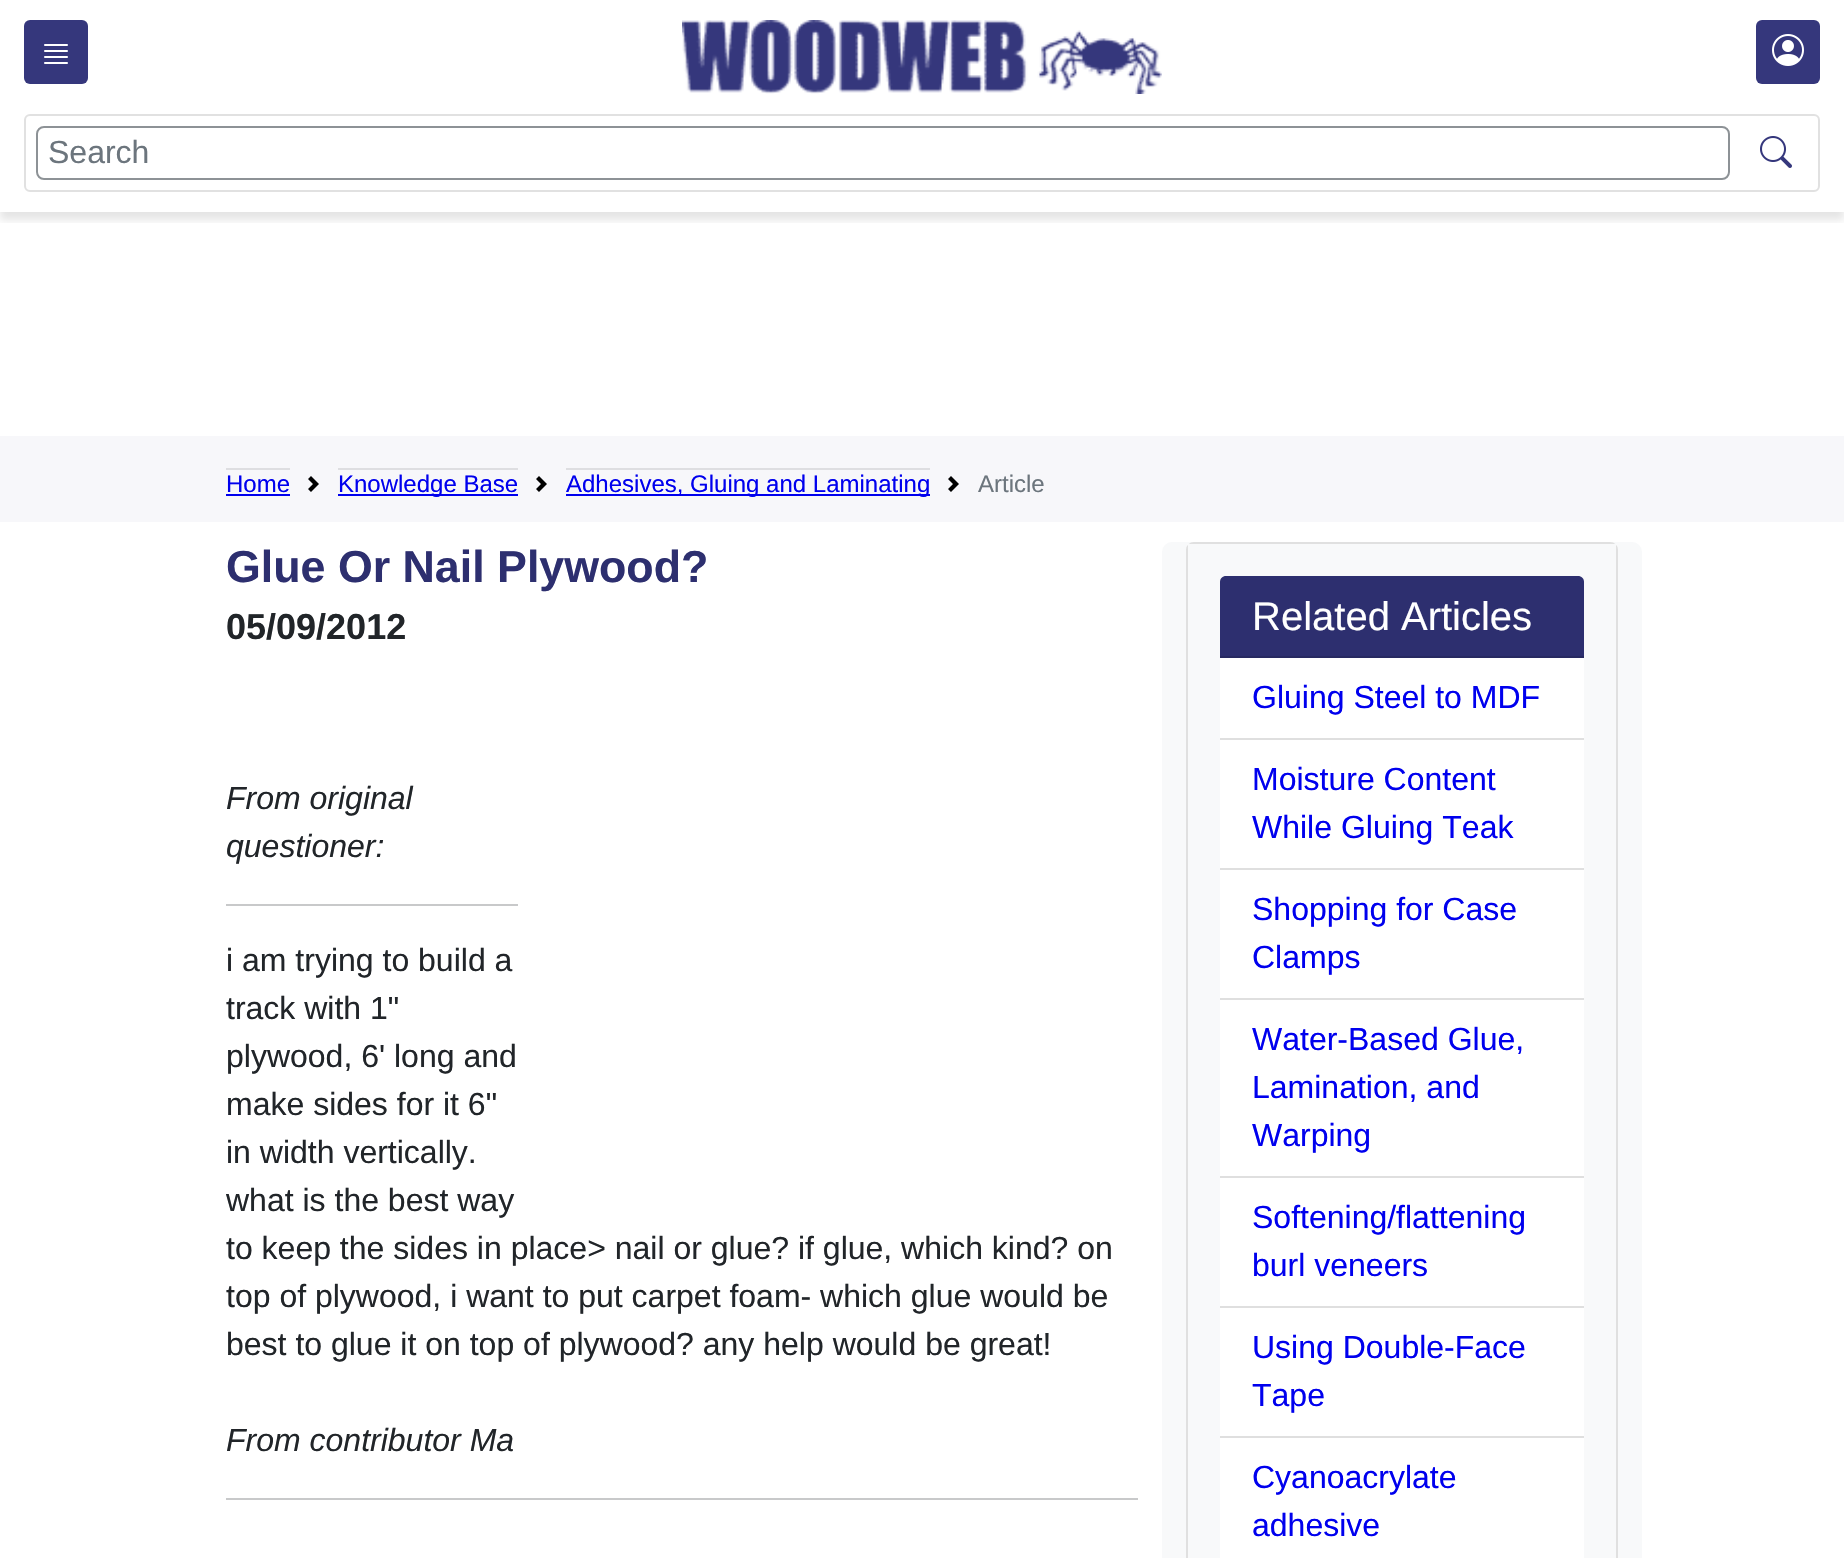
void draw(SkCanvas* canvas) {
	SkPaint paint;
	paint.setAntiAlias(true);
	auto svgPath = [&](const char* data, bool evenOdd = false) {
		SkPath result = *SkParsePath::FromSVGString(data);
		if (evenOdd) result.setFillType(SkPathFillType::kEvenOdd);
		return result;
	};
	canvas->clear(0xffffffff);
	canvas->save();
	canvas->clipRect(SkRect::MakeXYWH(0, 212, 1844, 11));
	paint.setColor(0x1a000000);
	paint.setMaskFilter(SkMaskFilter::MakeBlur(kNormal_SkBlurStyle, 4));
	canvas->drawRect(SkRect::MakeXYWH(0, 8, 1844, 212), paint);
	paint.setMaskFilter(nullptr);
	canvas->restore();
	paint.setColor(0xff35377c);
	canvas->drawRoundRect(SkRect::MakeXYWH(24, 20, 64, 64), 6, 6, paint);
	canvas->drawImageRect(SkImages::DeferredFromEncodedData(SkData::MakeFromFileName("img1.png")), SkRect::MakeXYWH(44, 44, 24, 20), SkSamplingOptions());
	canvas->drawImageRect(SkImages::DeferredFromEncodedData(SkData::MakeFromFileName("img2.png")), SkRect::MakeXYWH(682, 20, 480, 74), SkSamplingOptions());
	canvas->drawRoundRect(SkRect::MakeXYWH(1756, 20, 64, 64), 6, 6, paint);
	canvas->drawImageRect(SkImages::DeferredFromEncodedData(SkData::MakeFromFileName("img3.png")), SkRect::MakeXYWH(1772, 34, 32, 32), SkSamplingOptions());
	paint.setStroke(true);
	paint.setStrokeWidth(2);
	paint.setColor(0xffe1e1e1);
	canvas->drawRoundRect(SkRect::MakeXYWH(25, 115, 1794, 76), 5, 5, paint);
	paint.setColor(0xff8d9296);
	canvas->drawRoundRect(SkRect::MakeXYWH(37, 127, 1692, 52), 7, 7, paint);
	SkFont f1(fontMgr->matchFamilyStyle("Liberation Sans", SkFontStyle::Normal()), 32);
	f1.setSubpixel(true);
	paint.setStroke(false);
	paint.setColor(0xff6c757d);
	canvas->drawString("Search", 48, 163, f1, paint);
	canvas->drawImageRect(SkImages::DeferredFromEncodedData(SkData::MakeFromFileName("img4.png")), SkRect::MakeXYWH(1760, 136, 32, 32), SkSamplingOptions());
	paint.setColor(0xfff7f7fa);
	canvas->drawRect(SkRect::MakeXYWH(0, 436, 1844, 86), paint);
	SkFont f2(fontMgr->matchFamilyStyle("Liberation Sans", SkFontStyle::Normal()), 24);
	f2.setSubpixel(true);
	paint.setColor(0xff0000ee);
	canvas->drawString("Home", 226, 492, f2, paint);
	paint.setColor(0xffdedee1);
	canvas->drawRect(SkRect::MakeXYWH(226, 468, 64, 2), paint);
	paint.setColor(0xff0000ee);
	canvas->drawRect(SkRect::MakeXYWH(226, 494, 64, 2), paint);
	canvas->drawImageRect(SkImages::DeferredFromEncodedData(SkData::MakeFromFileName("img5.png")), SkRect::MakeXYWH(308, 476, 11, 16), SkSamplingOptions());
	canvas->drawRect(SkRect::MakeXYWH(338, 494, 180, 2), paint);
	canvas->drawString("Knowledge Base", 338, 492, f2, paint);
	paint.setColor(0xffdedee1);
	canvas->drawRect(SkRect::MakeXYWH(338, 468, 180, 2), paint);
	canvas->drawImageRect(SkImages::DeferredFromEncodedData(SkData::MakeFromFileName("img5.png")), SkRect::MakeXYWH(536, 476, 11, 16), SkSamplingOptions());
	paint.setColor(0xff0000ee);
	canvas->drawRect(SkRect::MakeXYWH(566, 494, 364, 2), paint);
	canvas->drawString("Adhesives, Gluing and Laminating", 566, 492, f2, paint);
	paint.setColor(0xffdedee1);
	canvas->drawRect(SkRect::MakeXYWH(566, 468, 364, 2), paint);
	canvas->drawImageRect(SkImages::DeferredFromEncodedData(SkData::MakeFromFileName("img5.png")), SkRect::MakeXYWH(948, 476, 11, 16), SkSamplingOptions());
	paint.setColor(0xff6c757d);
	canvas->drawString("Article", 978, 492, f2, paint);
	SkFont f3(fontMgr->matchFamilyStyle("Liberation Sans", SkFontStyle::Bold()), 44.75);
	f3.setSubpixel(true);
	paint.setColor(0xff2d2f6f);
	canvas->drawString("Glue Or Nail Plywood?", 226, 582, f3, paint);
	SkFont f4(fontMgr->matchFamilyStyle("Liberation Sans", SkFontStyle::Bold()), 36);
	f4.setSubpixel(true);
	paint.setColor(0xff212529);
	canvas->drawString("05/09/2012", 226, 639, f4, paint);
	SkFont f5(fontMgr->matchFamilyStyle("Liberation Sans", SkFontStyle::Italic()), 32);
	f5.setSubpixel(true);
	canvas->drawString("From original", 226, 809, f5, paint);
	canvas->drawString("questioner:", 226, 857, f5, paint);
	paint.setColor(0xffc8c9ca);
	canvas->drawRect(SkRect::MakeXYWH(226, 904, 292, 2), paint);
	paint.setColor(0xff212529);
	canvas->drawString("i am trying to build a", 226, 971, f1, paint);
	canvas->drawString("track with 1\"", 226, 1019, f1, paint);
	canvas->drawString("plywood, 6' long and", 226, 1067, f1, paint);
	canvas->drawString("make sides for it 6\"", 226, 1115, f1, paint);
	canvas->drawString("in width vertically.", 226, 1163, f1, paint);
	canvas->drawString("what is the best way", 226, 1211, f1, paint);
	canvas->drawString("to keep the sides in place> nail or glue? if glue, which kind? on", 226, 1259, f1, paint);
	canvas->drawString("top of plywood, i want to put carpet foam- which glue would be", 226, 1307, f1, paint);
	canvas->drawString("best to glue it on top of plywood? any help would be great!", 226, 1355, f1, paint);
	canvas->drawString("From contributor Ma", 226, 1451, f5, paint);
	paint.setColor(0xffc8c9ca);
	canvas->drawRect(SkRect::MakeXYWH(226, 1498, 912, 2), paint);
	paint.setColor(0xfff8f9fa);
	canvas->drawRoundRect(SkRect::MakeXYWH(1162, 542, 480, 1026), 10, 10, paint);
	paint.setColor(0xffffffff);
	canvas->drawRoundRect(SkRect::MakeXYWH(1186, 542, 432, 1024), 8, 8, paint);
	paint.setStroke(true);
	paint.setColor(0x1f000000);
	canvas->drawRoundRect(SkRect::MakeXYWH(1187, 543, 430, 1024), 7, 7, paint);
	paint.setStroke(false);
	paint.setColor(0xfff8f9fa);
	canvas->drawRect(SkRect::MakeXYWH(1188, 544, 428, 1014), paint);
	paint.setColor(0xff2d2f6f);
	canvas->drawPath(svgPath("M1226 576H1578C1581.5 576 1584 578.5 1584 582V658H1220V582C1220 578.5 1222.5 576 1226 576Z"), paint);
	paint.setColor(0xff272961);
	canvas->drawRect(SkRect::MakeXYWH(1220, 656, 364, 2), paint);
	SkFont f6(fontMgr->matchFamilyStyle("Liberation Sans", SkFontStyle::Normal()), 40);
	f6.setSubpixel(true);
	paint.setColor(0xffffffff);
	canvas->drawString("Related Articles", 1252, 630, f6, paint);
	canvas->drawRect(SkRect::MakeXYWH(1220, 658, 364, 80), paint);
	paint.setColor(0xffdfdfdf);
	canvas->drawRect(SkRect::MakeXYWH(1220, 738, 364, 2), paint);
	paint.setColor(0xff0000ee);
	canvas->drawString("Gluing Steel to MDF", 1252, 708, f1, paint);
	paint.setColor(0xffffffff);
	canvas->drawRect(SkRect::MakeXYWH(1220, 740, 364, 128), paint);
	paint.setColor(0xffdfdfdf);
	canvas->drawRect(SkRect::MakeXYWH(1220, 868, 364, 2), paint);
	paint.setColor(0xff0000ee);
	canvas->drawString("Moisture Content", 1252, 790, f1, paint);
	canvas->drawString("While Gluing Teak", 1252, 838, f1, paint);
	paint.setColor(0xffffffff);
	canvas->drawRect(SkRect::MakeXYWH(1220, 870, 364, 128), paint);
	paint.setColor(0xffdfdfdf);
	canvas->drawRect(SkRect::MakeXYWH(1220, 998, 364, 2), paint);
	paint.setColor(0xff0000ee);
	canvas->drawString("Shopping for Case", 1252, 920, f1, paint);
	canvas->drawString("Clamps", 1252, 968, f1, paint);
	paint.setColor(0xffffffff);
	canvas->drawRect(SkRect::MakeXYWH(1220, 1000, 364, 176), paint);
	paint.setColor(0xffdfdfdf);
	canvas->drawRect(SkRect::MakeXYWH(1220, 1176, 364, 2), paint);
	paint.setColor(0xff0000ee);
	canvas->drawString("Water-Based Glue,", 1252, 1050, f1, paint);
	canvas->drawString("Lamination, and", 1252, 1098, f1, paint);
	canvas->drawString("Warping", 1252, 1146, f1, paint);
	paint.setColor(0xffffffff);
	canvas->drawRect(SkRect::MakeXYWH(1220, 1178, 364, 128), paint);
	paint.setColor(0xffdfdfdf);
	canvas->drawRect(SkRect::MakeXYWH(1220, 1306, 364, 2), paint);
	paint.setColor(0xff0000ee);
	canvas->drawString("Softening/flattening", 1252, 1228, f1, paint);
	canvas->drawString("burl veneers", 1252, 1276, f1, paint);
	paint.setColor(0xffffffff);
	canvas->drawRect(SkRect::MakeXYWH(1220, 1308, 364, 128), paint);
	paint.setColor(0xffdfdfdf);
	canvas->drawRect(SkRect::MakeXYWH(1220, 1436, 364, 2), paint);
	paint.setColor(0xff0000ee);
	canvas->drawString("Using Double-Face", 1252, 1358, f1, paint);
	canvas->drawString("Tape", 1252, 1406, f1, paint);
	paint.setColor(0xffffffff);
	canvas->drawRect(SkRect::MakeXYWH(1220, 1438, 364, 120), paint);
	paint.setColor(0xff0000ee);
	canvas->drawString("Cyanoacrylate", 1252, 1488, f1, paint);
	canvas->drawString("adhesive", 1252, 1536, f1, paint);
}
